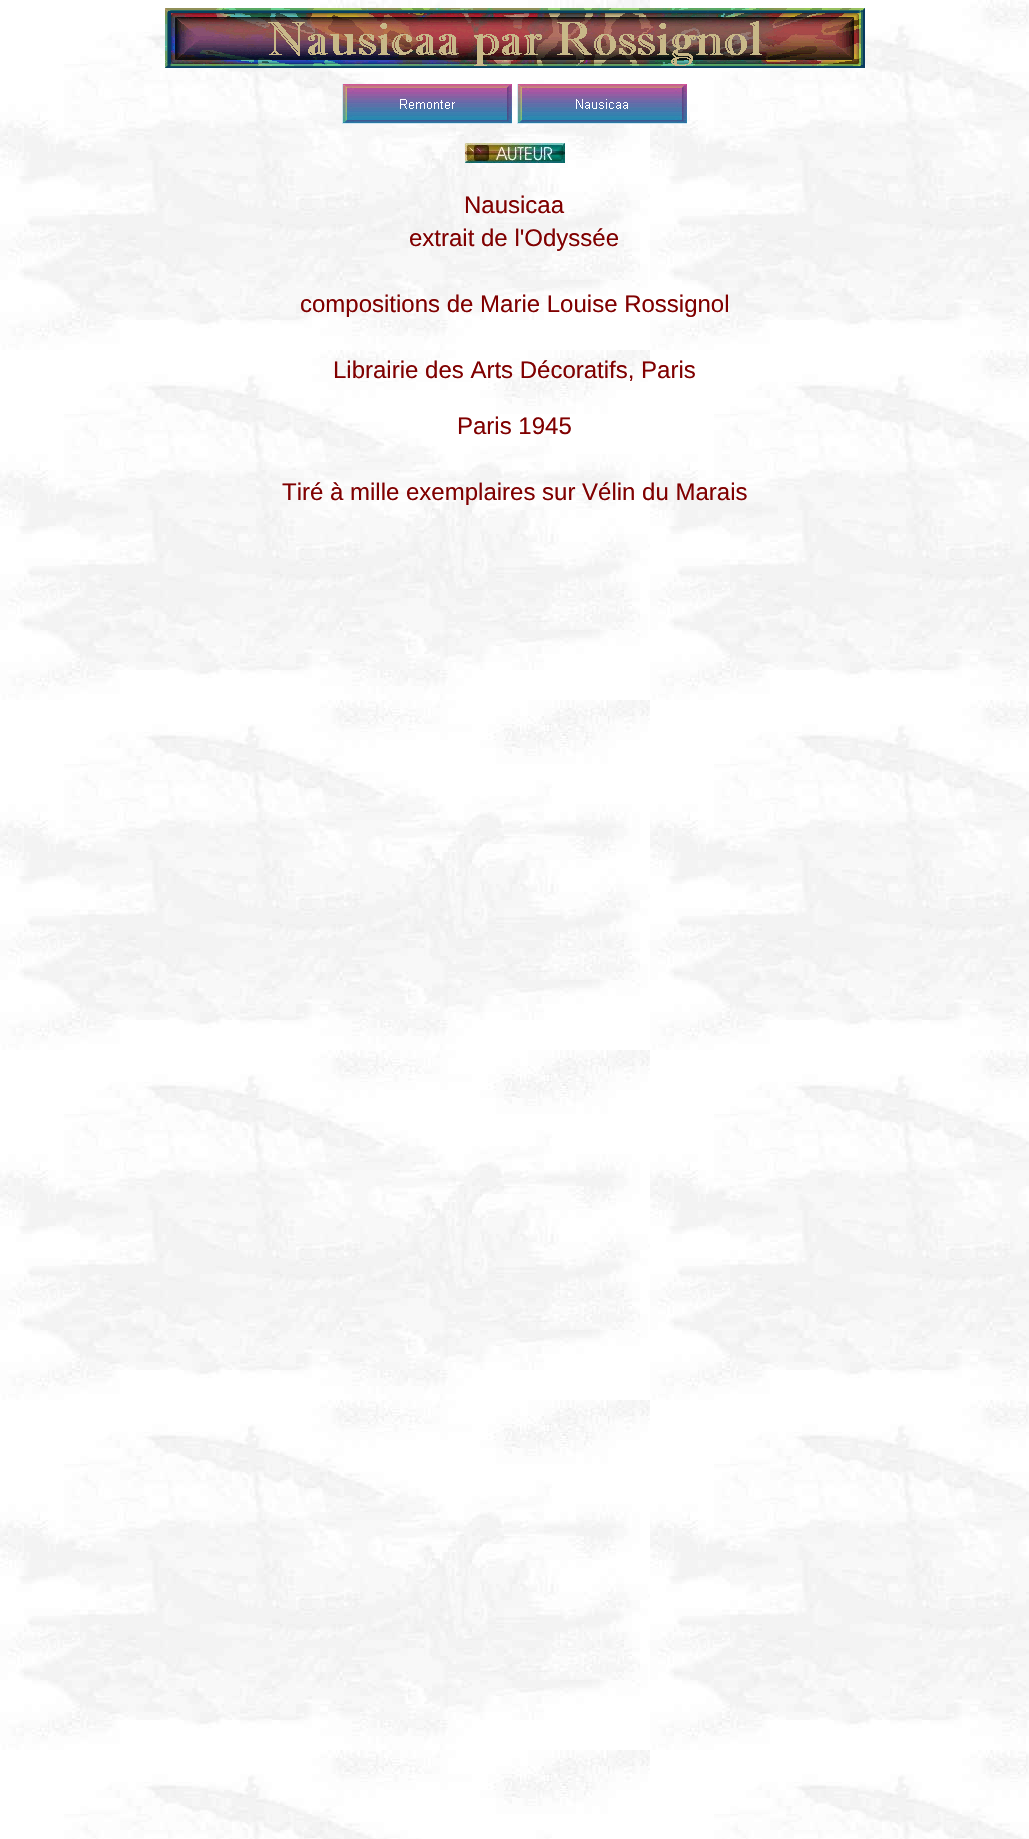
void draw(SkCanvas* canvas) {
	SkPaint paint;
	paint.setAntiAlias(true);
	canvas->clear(0xffffffff);
	canvas->drawImageRect(SkImages::DeferredFromEncodedData(SkData::MakeFromFileName("img1.png")), SkRect::MakeXYWH(0, 0, 1029, 1839), SkSamplingOptions());
	canvas->drawImageRect(SkImages::DeferredFromEncodedData(SkData::MakeFromFileName("img2.png")), SkRect::MakeXYWH(165, 8, 700, 60), SkSamplingOptions());
	canvas->drawImageRect(SkImages::DeferredFromEncodedData(SkData::MakeFromFileName("img3.png")), SkRect::MakeXYWH(342, 84, 170, 40), SkSamplingOptions());
	canvas->drawImageRect(SkImages::DeferredFromEncodedData(SkData::MakeFromFileName("img4.png")), SkRect::MakeXYWH(517, 84, 170, 40), SkSamplingOptions());
	canvas->drawImageRect(SkImages::DeferredFromEncodedData(SkData::MakeFromFileName("img5.png")), SkRect::MakeXYWH(465, 143, 100, 20), SkSamplingOptions());
	SkFont f1(fontMgr->matchFamilyStyle("Liberation Sans", SkFontStyle::Normal()), 24);
	f1.setSubpixel(true);
	paint.setColor(0xff800000);
	canvas->drawString("Nausicaa", 464, 213, f1, paint);
	canvas->drawString("extrait de l'Odyssée", 409, 246, f1, paint);
	canvas->drawString("compositions de Marie Louise Rossignol", 300, 312, f1, paint);
	canvas->drawString("Librairie des Arts Décoratifs, Paris", 333, 378, f1, paint);
	canvas->drawString("Paris 1945", 457, 434, f1, paint);
	canvas->drawString("Tiré à mille exemplaires sur Vélin du Marais", 282, 500, f1, paint);
}
